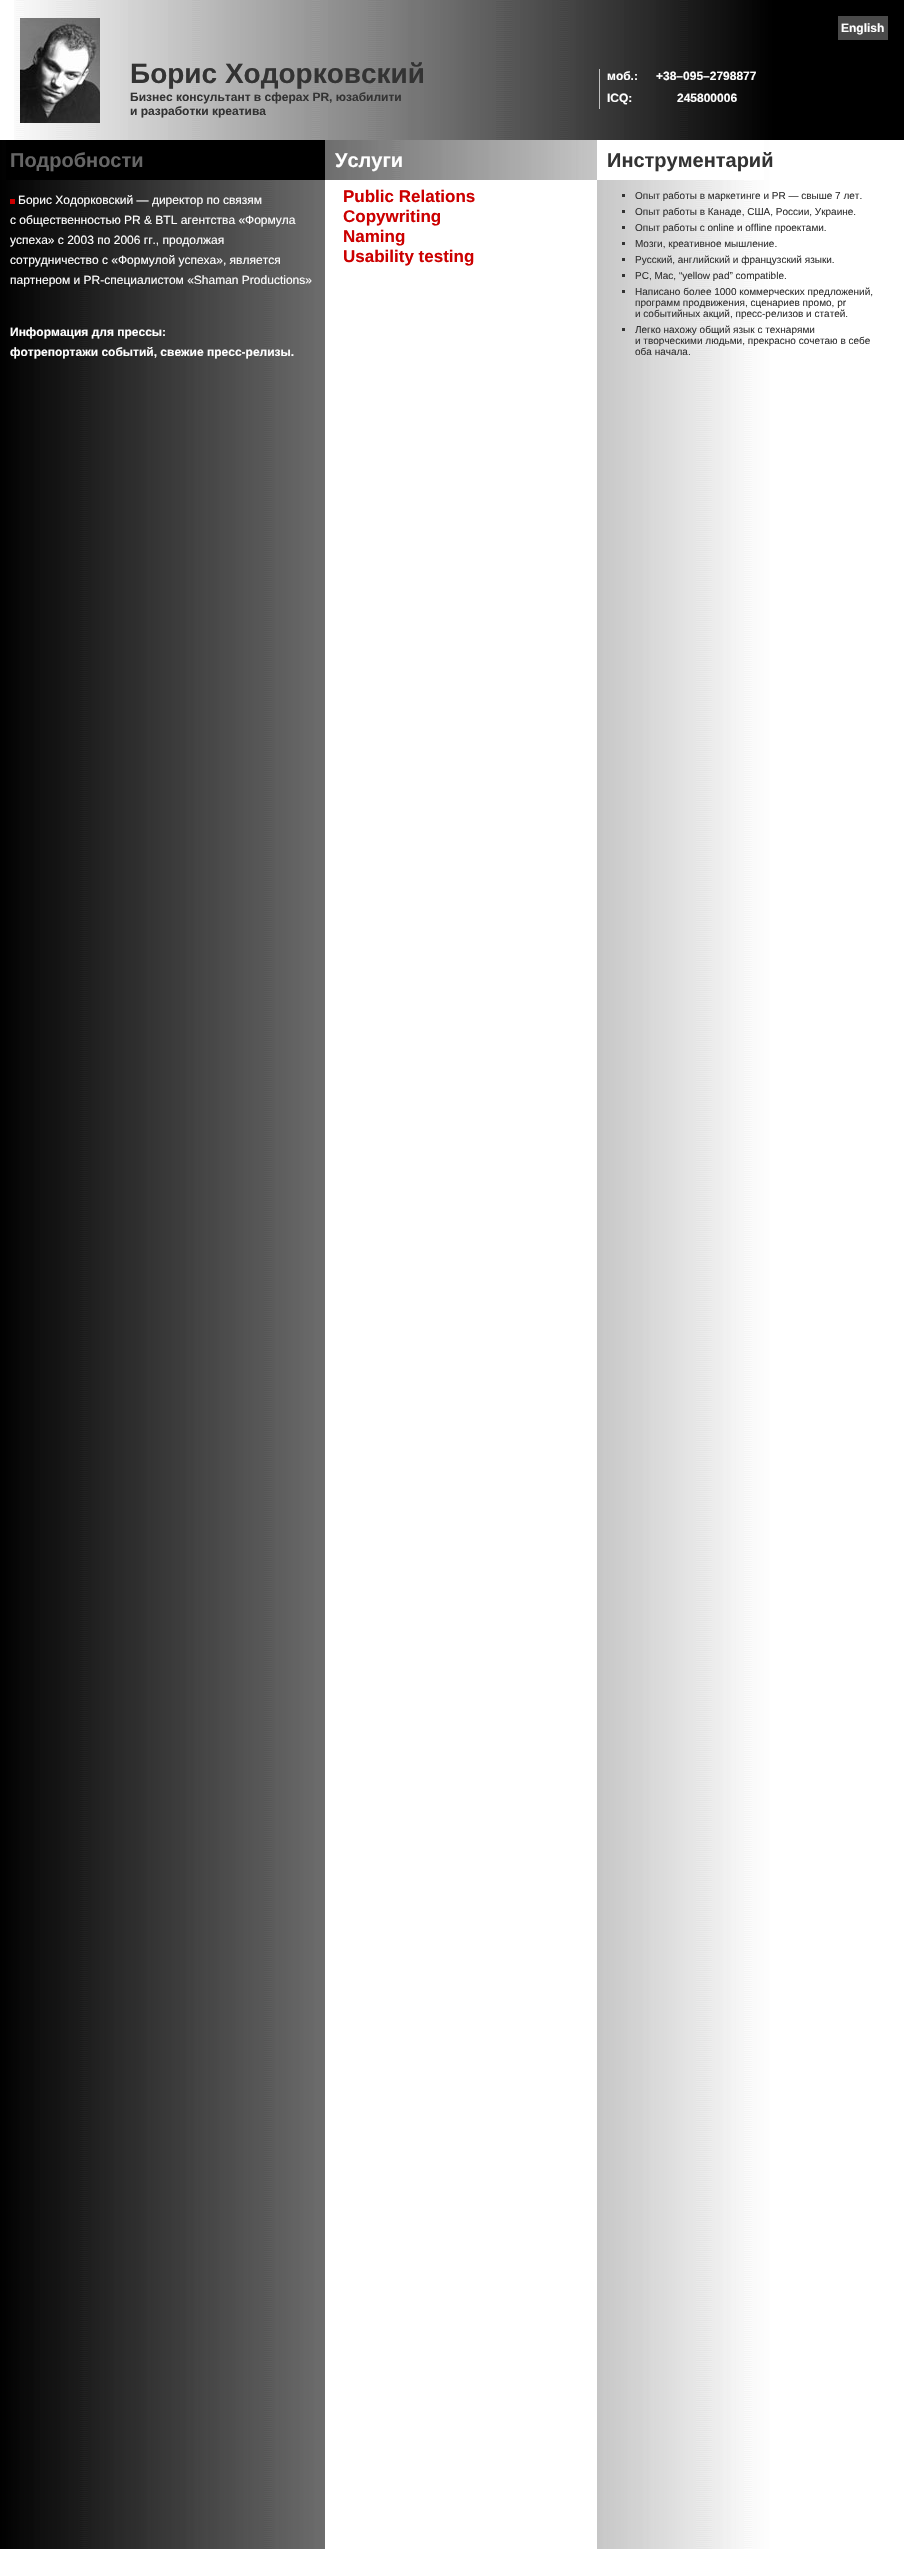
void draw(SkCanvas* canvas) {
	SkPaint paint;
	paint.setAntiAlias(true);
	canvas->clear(0xffffffff);
	canvas->drawImageRect(SkImages::DeferredFromEncodedData(SkData::MakeFromFileName("img1.png")), SkRect::MakeXYWH(14, 0, 890, 140), SkSamplingOptions());
	canvas->drawImageRect(SkImages::DeferredFromEncodedData(SkData::MakeFromFileName("img2.png")), SkRect::MakeXYWH(20, 18, 80, 105), SkSamplingOptions());
	SkFont f1(fontMgr->matchFamilyStyle("Liberation Sans", SkFontStyle::Bold()), 28);
	f1.setSubpixel(true);
	paint.setColor(0xff333333);
	canvas->drawString("Борис Ходорковский", 130, 83, f1, paint);
	SkFont f2(fontMgr->matchFamilyStyle("Liberation Sans", SkFontStyle::Bold()), 12);
	f2.setSubpixel(true);
	canvas->drawString("Бизнес консультант в сферах PR, юзабилити", 130, 101, f2, paint);
	canvas->drawString("и разработки креатива", 130, 115, f2, paint);
	paint.setColor(0xff4a4a4a);
	canvas->drawRect(SkRect::MakeXYWH(838, 16, 50, 24), paint);
	paint.setColor(0xffffffff);
	canvas->drawString("English", 841, 32, f2, paint);
	paint.setColor(0xffc1c1c1);
	canvas->drawRect(SkRect::MakeXYWH(599, 69, 1, 40), paint);
	paint.setColor(0xffffffff);
	canvas->drawString("моб.:", 607, 80, f2, paint);
	canvas->drawString("+38–095–2798877", 656, 80, f2, paint);
	canvas->drawString("ICQ:", 607, 102, f2, paint);
	canvas->drawString("245800006", 677, 102, f2, paint);
	canvas->drawImageRect(SkImages::DeferredFromEncodedData(SkData::MakeFromFileName("img3.png")), SkRect::MakeXYWH(0, 140, 904, 2409), SkSamplingOptions());
	paint.setColor(0xff000000);
	canvas->drawRect(SkRect::MakeXYWH(6, 140, 319, 40), paint);
	SkFont f3(fontMgr->matchFamilyStyle("Liberation Sans", SkFontStyle::Bold()), 20);
	f3.setSubpixel(true);
	paint.setColor(0xff666666);
	canvas->drawString("Подробности", 10, 167, f3, paint);
	paint.setColor(0xffffffff);
	canvas->drawString("Услуги", 335, 167, f3, paint);
	canvas->drawRect(SkRect::MakeXYWH(597, 140, 167, 40), paint);
	paint.setColor(0xff333333);
	canvas->drawString("Инструментарий", 607, 167, f3, paint);
	paint.setColor(0xffcc0000);
	canvas->drawRect(SkRect::MakeXYWH(10, 199, 5, 5), paint);
	SkFont f4(fontMgr->matchFamilyStyle("Liberation Sans", SkFontStyle::Normal()), 12);
	f4.setSubpixel(true);
	paint.setColor(0xffffffff);
	canvas->drawString("Борис Ходорковский — директор по связям", 18, 204, f4, paint);
	canvas->drawString("с общественностью PR & BTL агентства «Формула", 10, 224, f4, paint);
	canvas->drawString("успеха» с 2003 по 2006 гг., продолжая", 10, 244, f4, paint);
	canvas->drawString("сотрудничество с «Формулой успеха», является", 10, 264, f4, paint);
	canvas->drawString("партнером и PR-специалистом «Shaman Productions»", 10, 284, f4, paint);
	canvas->drawString("Информация для прессы:", 10, 336, f2, paint);
	canvas->drawString("фотрепортажи событий, свежие пресс-релизы.", 10, 356, f2, paint);
	canvas->drawRect(SkRect::MakeXYWH(325, 180, 272, 2369), paint);
	SkFont f5(fontMgr->matchFamilyStyle("Liberation Sans", SkFontStyle::Bold()), 17);
	f5.setSubpixel(true);
	paint.setColor(0xffcc0000);
	canvas->drawString("Public Relations", 343, 202, f5, paint);
	canvas->drawString("Copywriting", 343, 222, f5, paint);
	canvas->drawString("Naming", 343, 242, f5, paint);
	canvas->drawString("Usability testing", 343, 262, f5, paint);
	paint.setColor(0xff333333);
	canvas->drawRect(SkRect::MakeXYWH(622, 194, 3, 3), paint);
	SkFont f6(fontMgr->matchFamilyStyle("Liberation Sans", SkFontStyle::Normal()), 10);
	f6.setSubpixel(true);
	canvas->drawString("Опыт работы в маркетинге и PR — свыше 7 лет.", 635, 199, f6, paint);
	canvas->drawRect(SkRect::MakeXYWH(622, 210, 3, 3), paint);
	canvas->drawString("Опыт работы в Канаде, США, России, Украине.", 635, 215, f6, paint);
	canvas->drawRect(SkRect::MakeXYWH(622, 226, 3, 3), paint);
	canvas->drawString("Опыт работы с online и offline проектами.", 635, 231, f6, paint);
	canvas->drawRect(SkRect::MakeXYWH(622, 242, 3, 3), paint);
	canvas->drawString("Мозги, креативное мышление.", 635, 247, f6, paint);
	canvas->drawRect(SkRect::MakeXYWH(622, 258, 3, 3), paint);
	canvas->drawString("Русский, английский и французский языки.", 635, 263, f6, paint);
	canvas->drawRect(SkRect::MakeXYWH(622, 274, 3, 3), paint);
	canvas->drawString("PC, Mac, “yellow pad” compatible.", 635, 279, f6, paint);
	canvas->drawRect(SkRect::MakeXYWH(622, 290, 3, 3), paint);
	canvas->drawString("Написано более 1000 коммерческих предложений,", 635, 295, f6, paint);
	canvas->drawString("программ продвижения, сценариев промо, pr", 635, 306, f6, paint);
	canvas->drawString("и событийных акций, пресс-релизов и статей.", 635, 317, f6, paint);
	canvas->drawRect(SkRect::MakeXYWH(622, 328, 3, 3), paint);
	canvas->drawString("Легко нахожу общий язык с технарями", 635, 333, f6, paint);
	canvas->drawString("и творческими людьми, прекрасно сочетаю в себе", 635, 344, f6, paint);
	canvas->drawString("оба начала.", 635, 355, f6, paint);
}
